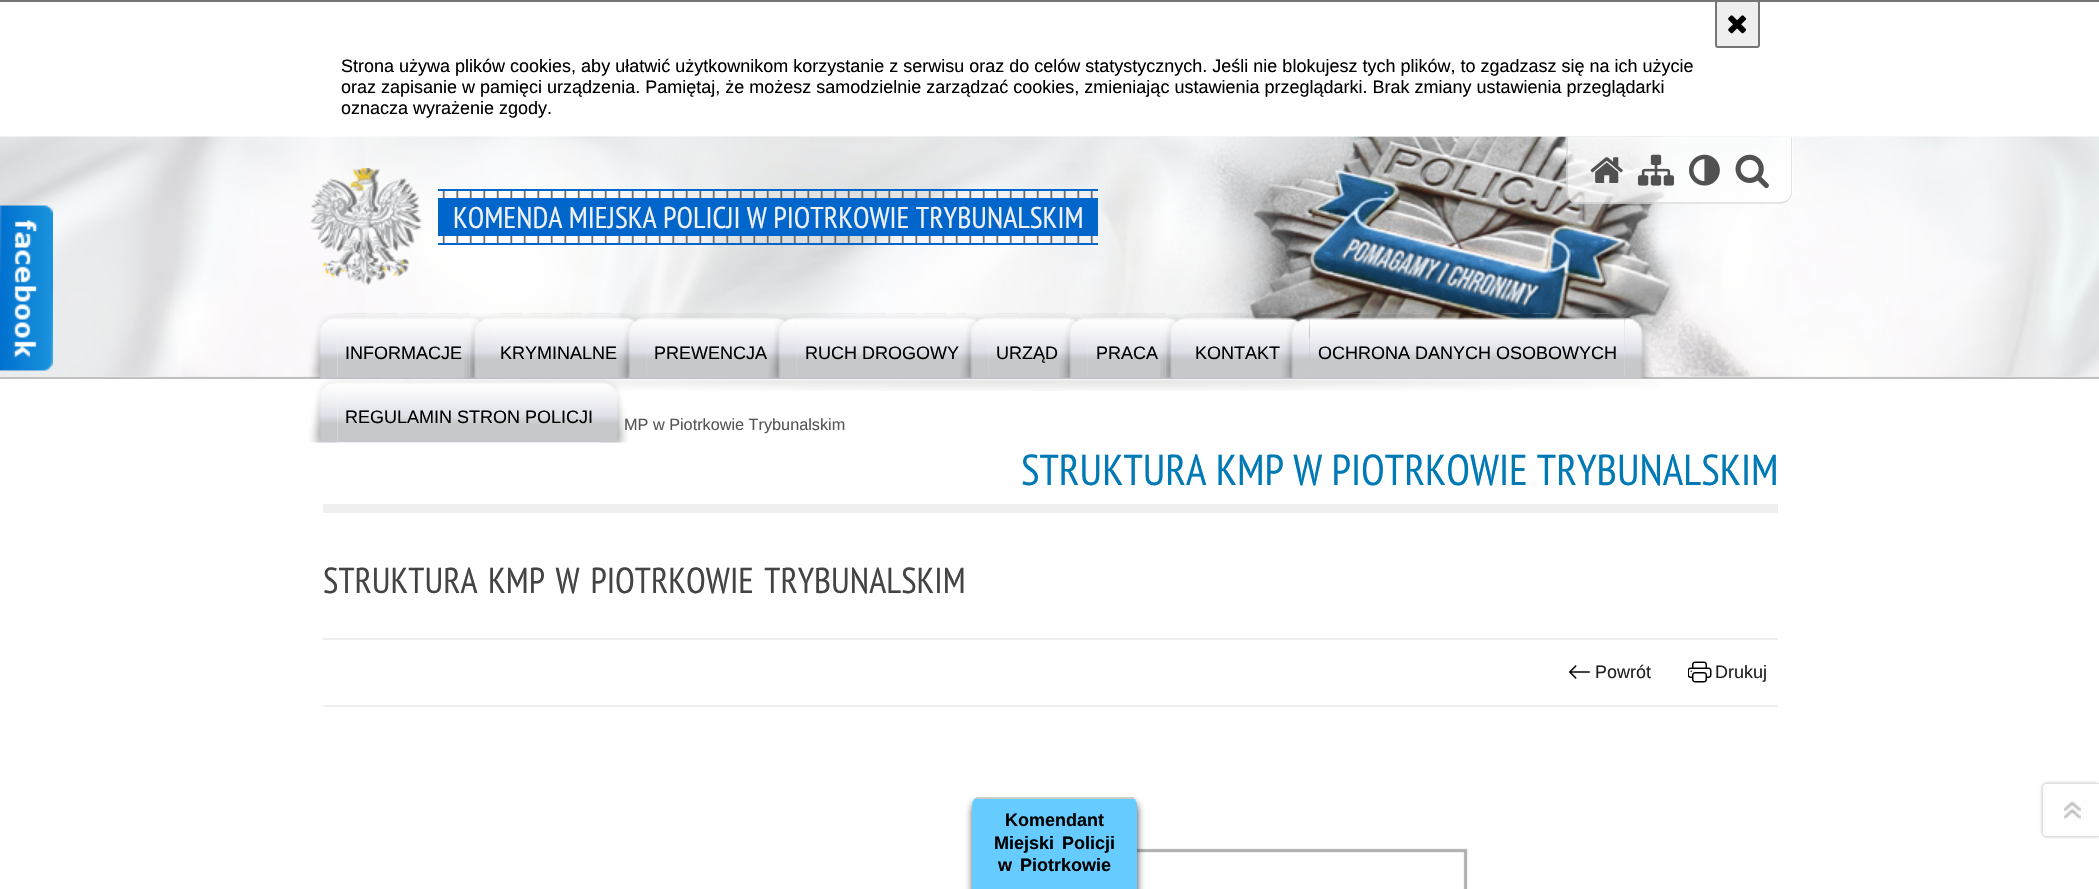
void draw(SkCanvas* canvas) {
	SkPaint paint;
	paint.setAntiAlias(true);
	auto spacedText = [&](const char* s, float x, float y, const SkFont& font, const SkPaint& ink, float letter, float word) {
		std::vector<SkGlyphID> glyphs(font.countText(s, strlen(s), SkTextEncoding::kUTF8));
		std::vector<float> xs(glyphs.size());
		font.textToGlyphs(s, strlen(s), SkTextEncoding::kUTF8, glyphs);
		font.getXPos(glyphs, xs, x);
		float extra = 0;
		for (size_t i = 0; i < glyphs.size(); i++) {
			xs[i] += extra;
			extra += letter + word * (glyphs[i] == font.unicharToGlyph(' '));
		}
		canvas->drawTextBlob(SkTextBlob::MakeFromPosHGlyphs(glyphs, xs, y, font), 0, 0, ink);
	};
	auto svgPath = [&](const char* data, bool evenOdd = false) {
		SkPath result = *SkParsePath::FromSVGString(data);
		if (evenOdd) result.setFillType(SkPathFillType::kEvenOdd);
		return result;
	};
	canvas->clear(0xffffffff);
	paint.setColor(0xff767676);
	canvas->drawRect(SkRect::MakeXYWH(0, 0, 2099, 2), paint);
	paint.setColor(0xffefefef);
	canvas->drawRoundRect(SkRect::MakeXYWH(1716, 1, 43, 46), 2, 2, paint);
	paint.setStroke(true);
	paint.setStrokeWidth(2);
	paint.setColor(0xff767676);
	canvas->drawRoundRect(SkRect::MakeXYWH(1716, 1, 43, 46), 2, 2, paint);
	canvas->drawImageRect(SkImages::DeferredFromEncodedData(SkData::MakeFromFileName("img1.png")), SkRect::MakeXYWH(1728, 15, 18, 19), SkSamplingOptions());
	SkFont f1(fontMgr->matchFamilyStyle("Liberation Sans", SkFontStyle::Normal()), 18);
	f1.setSubpixel(true);
	paint.setStroke(false);
	paint.setColor(0xff000000);
	canvas->drawString("Strona używa plików cookies, aby ułatwić użytkownikom korzystanie z serwisu oraz do celów statystycznych. Jeśli nie blokujesz tych plików, to zgadzasz się na ich użycie", 341, 72, f1, paint);
	canvas->drawString("oraz zapisanie w pamięci urządzenia. Pamiętaj, że możesz samodzielnie zarządzać cookies, zmieniając ustawienia przeglądarki. Brak zmiany ustawienia przeglądarki", 341, 93, f1, paint);
	canvas->drawString("oznacza wyrażenie zgody.", 341, 114, f1, paint);
	canvas->drawImageRect(SkImages::DeferredFromEncodedData(SkData::MakeFromFileName("img3.png")), SkRect::MakeXYWH(0, 136, 2099, 241), SkSamplingOptions());
	canvas->drawImageRect(SkImages::DeferredFromEncodedData(SkData::MakeFromFileName("img2.png")), SkRect::MakeXYWH(0, 205, 53, 166), SkSamplingOptions());
	canvas->drawImageRect(SkImages::DeferredFromEncodedData(SkData::MakeFromFileName("img4.png")), SkRect::MakeXYWH(404, 379, 1256, 12), SkSamplingOptions());
	canvas->drawImageRect(SkImages::DeferredFromEncodedData(SkData::MakeFromFileName("img5.png")), SkRect::MakeXYWH(365, 136, 1567, 241), SkSamplingOptions());
	paint.setColor(0xffc1c1c1);
	canvas->drawRect(SkRect::MakeXYWH(0, 377, 2099, 2), paint);
	paint.setColor(0xb3ffffff);
	canvas->drawPath(svgPath("M1566 137H1793V192C1793 198.5 1787.5 204 1781 204H1578C1571.5 204 1566 198.5 1566 192Z"), paint);
	canvas->save();
	canvas->clipRect(SkRect::MakeXYWH(0, 137, 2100, 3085));
	paint.setColor(0x1a000000);
	canvas->drawPath(svgPath("M1566 136H1792V192C1792 199 1787 204 1780 204H1578C1571 204 1566 199 1566 192ZM1568 136H1791V192C1791 198 1786 202 1780 202H1578C1572 202 1568 198 1568 192Z", true), paint);
	canvas->restore();
	canvas->drawImageRect(SkImages::DeferredFromEncodedData(SkData::MakeFromFileName("img6.png")), SkRect::MakeXYWH(1590, 157, 33, 26), SkSamplingOptions());
	canvas->drawImageRect(SkImages::DeferredFromEncodedData(SkData::MakeFromFileName("img7.png")), SkRect::MakeXYWH(1638, 154, 36, 32), SkSamplingOptions());
	canvas->drawImageRect(SkImages::DeferredFromEncodedData(SkData::MakeFromFileName("img8.png")), SkRect::MakeXYWH(1689, 154, 31, 32), SkSamplingOptions());
	canvas->drawImageRect(SkImages::DeferredFromEncodedData(SkData::MakeFromFileName("img9.png")), SkRect::MakeXYWH(1735, 154, 34, 35), SkSamplingOptions());
	canvas->drawImageRect(SkImages::DeferredFromEncodedData(SkData::MakeFromFileName("img10.png")), SkRect::MakeXYWH(442, 191, 651, 52), SkSamplingOptions());
	paint.setColor(0xff0066cc);
	canvas->drawRect(SkRect::MakeXYWH(438, 189, 660, 2), paint);
	canvas->drawRect(SkRect::MakeXYWH(438, 243, 660, 2), paint);
	canvas->drawImageRect(SkImages::DeferredFromEncodedData(SkData::MakeFromFileName("img11.png")), SkRect::MakeXYWH(310, 168, 112, 118), SkSamplingOptions());
	canvas->drawRect(SkRect::MakeXYWH(438, 198, 660, 38), paint);
	SkFont f2(fontMgr->matchFamilyStyle("PT Sans Narrow", SkFontStyle::Normal()), 30);
	f2.setSubpixel(true);
	paint.setColor(0xfff1f1f1);
	canvas->drawString("KOMENDA MIEJSKA POLICJI W PIOTRKOWIE TRYBUNALSKIM", 453, 228, f2, paint);
	canvas->drawImageRect(SkImages::DeferredFromEncodedData(SkData::MakeFromFileName("img12.png")), SkRect::MakeXYWH(469, 314, 29, 64), SkSamplingOptions());
	canvas->drawImageRect(SkImages::DeferredFromEncodedData(SkData::MakeFromFileName("img13.png")), SkRect::MakeXYWH(309, 314, 29, 64), SkSamplingOptions());
	canvas->drawImageRect(SkImages::DeferredFromEncodedData(SkData::MakeFromFileName("img14.png")), SkRect::MakeXYWH(337, 313, 133, 65), SkSamplingOptions());
	paint.setColor(0xff000000);
	canvas->drawString("INFORMACJE", 345, 359, f1, paint);
	canvas->drawImageRect(SkImages::DeferredFromEncodedData(SkData::MakeFromFileName("img15.png")), SkRect::MakeXYWH(624, 314, 28, 64), SkSamplingOptions());
	canvas->drawImageRect(SkImages::DeferredFromEncodedData(SkData::MakeFromFileName("img16.png")), SkRect::MakeXYWH(464, 314, 28, 64), SkSamplingOptions());
	canvas->drawImageRect(SkImages::DeferredFromEncodedData(SkData::MakeFromFileName("img17.png")), SkRect::MakeXYWH(492, 313, 132, 65), SkSamplingOptions());
	canvas->drawString("KRYMINALNE", 500, 359, f1, paint);
	canvas->drawImageRect(SkImages::DeferredFromEncodedData(SkData::MakeFromFileName("img18.png")), SkRect::MakeXYWH(774, 314, 28, 64), SkSamplingOptions());
	canvas->drawImageRect(SkImages::DeferredFromEncodedData(SkData::MakeFromFileName("img19.png")), SkRect::MakeXYWH(618, 314, 29, 64), SkSamplingOptions());
	canvas->drawImageRect(SkImages::DeferredFromEncodedData(SkData::MakeFromFileName("img20.png")), SkRect::MakeXYWH(646, 313, 128, 65), SkSamplingOptions());
	canvas->drawString("PREWENCJA", 654, 359, f1, paint);
	canvas->drawImageRect(SkImages::DeferredFromEncodedData(SkData::MakeFromFileName("img21.png")), SkRect::MakeXYWH(966, 314, 28, 64), SkSamplingOptions());
	canvas->drawImageRect(SkImages::DeferredFromEncodedData(SkData::MakeFromFileName("img22.png")), SkRect::MakeXYWH(768, 314, 29, 64), SkSamplingOptions());
	canvas->drawImageRect(SkImages::DeferredFromEncodedData(SkData::MakeFromFileName("img23.png")), SkRect::MakeXYWH(796, 313, 170, 65), SkSamplingOptions());
	canvas->drawString("RUCH DROGOWY", 805, 359, f1, paint);
	canvas->drawImageRect(SkImages::DeferredFromEncodedData(SkData::MakeFromFileName("img24.png")), SkRect::MakeXYWH(1065, 314, 28, 64), SkSamplingOptions());
	canvas->drawImageRect(SkImages::DeferredFromEncodedData(SkData::MakeFromFileName("img25.png")), SkRect::MakeXYWH(960, 314, 29, 64), SkSamplingOptions());
	canvas->drawImageRect(SkImages::DeferredFromEncodedData(SkData::MakeFromFileName("img26.png")), SkRect::MakeXYWH(988, 313, 77, 65), SkSamplingOptions());
	canvas->drawString("URZĄD", 996, 359, f1, paint);
	canvas->drawImageRect(SkImages::DeferredFromEncodedData(SkData::MakeFromFileName("img27.png")), SkRect::MakeXYWH(1165, 314, 29, 64), SkSamplingOptions());
	canvas->drawImageRect(SkImages::DeferredFromEncodedData(SkData::MakeFromFileName("img28.png")), SkRect::MakeXYWH(1059, 314, 29, 64), SkSamplingOptions());
	canvas->drawImageRect(SkImages::DeferredFromEncodedData(SkData::MakeFromFileName("img29.png")), SkRect::MakeXYWH(1087, 313, 79, 65), SkSamplingOptions());
	canvas->drawString("PRACA", 1096, 359, f1, paint);
	canvas->drawImageRect(SkImages::DeferredFromEncodedData(SkData::MakeFromFileName("img30.png")), SkRect::MakeXYWH(1287, 315, 28, 63), SkSamplingOptions());
	canvas->drawImageRect(SkImages::DeferredFromEncodedData(SkData::MakeFromFileName("img31.png")), SkRect::MakeXYWH(1160, 314, 28, 64), SkSamplingOptions());
	canvas->drawImageRect(SkImages::DeferredFromEncodedData(SkData::MakeFromFileName("img32.png")), SkRect::MakeXYWH(1188, 313, 99, 65), SkSamplingOptions());
	canvas->drawString("KONTAKT", 1195, 359, f1, paint);
	canvas->drawImageRect(SkImages::DeferredFromEncodedData(SkData::MakeFromFileName("img33.png")), SkRect::MakeXYWH(1624, 316, 29, 62), SkSamplingOptions());
	canvas->drawImageRect(SkImages::DeferredFromEncodedData(SkData::MakeFromFileName("img34.png")), SkRect::MakeXYWH(1281, 317, 29, 61), SkSamplingOptions());
	canvas->drawImageRect(SkImages::DeferredFromEncodedData(SkData::MakeFromFileName("img35.png")), SkRect::MakeXYWH(1309, 313, 316, 65), SkSamplingOptions());
	canvas->drawString("OCHRONA DANYCH OSOBOWYCH", 1318, 359, f1, paint);
	SkFont f3(fontMgr->matchFamilyStyle("Liberation Sans", SkFontStyle::Normal()), 16.25);
	f3.setSubpixel(true);
	paint.setColor(0xff555555);
	canvas->drawString("MP w Piotrkowie Trybunalskim", 624, 430, f3, paint);
	canvas->drawImageRect(SkImages::DeferredFromEncodedData(SkData::MakeFromFileName("img36.png")), SkRect::MakeXYWH(600, 378, 28, 65), SkSamplingOptions());
	canvas->drawImageRect(SkImages::DeferredFromEncodedData(SkData::MakeFromFileName("img37.png")), SkRect::MakeXYWH(309, 378, 29, 65), SkSamplingOptions());
	canvas->drawImageRect(SkImages::DeferredFromEncodedData(SkData::MakeFromFileName("img38.png")), SkRect::MakeXYWH(337, 378, 263, 65), SkSamplingOptions());
	paint.setColor(0xff000000);
	canvas->drawString("REGULAMIN STRON POLICJI", 345, 423, f1, paint);
	paint.setColor(0xffefefef);
	canvas->drawRect(SkRect::MakeXYWH(323, 504, 1455, 9), paint);
	SkFont f4(fontMgr->matchFamilyStyle("PT Sans Narrow", SkFontStyle::Normal()), 43.25);
	f4.setSubpixel(true);
	paint.setColor(0xff0079b5);
	canvas->drawString("STRUKTURA KMP W PIOTRKOWIE TRYBUNALSKIM", 1021, 485, f4, paint);
	SkFont f5(fontMgr->matchFamilyStyle("PT Sans Narrow", SkFontStyle::Normal()), 36);
	f5.setSubpixel(true);
	paint.setColor(0xff444444);
	spacedText("STRUKTURA KMP W PIOTRKOWIE TRYBUNALSKIM", 323, 593, f5, paint, 0, 3);
	paint.setColor(0xffeeeeee);
	canvas->drawRect(SkRect::MakeXYWH(323, 638, 1455, 2), paint);
	canvas->drawRect(SkRect::MakeXYWH(323, 705, 1455, 2), paint);
	canvas->drawImageRect(SkImages::DeferredFromEncodedData(SkData::MakeFromFileName("img39.png")), SkRect::MakeXYWH(1569, 665, 21, 14), SkSamplingOptions());
	paint.setColor(0xff222222);
	canvas->drawString("Powrót", 1595, 678, f1, paint);
	canvas->drawImageRect(SkImages::DeferredFromEncodedData(SkData::MakeFromFileName("img40.png")), SkRect::MakeXYWH(1688, 661, 24, 22), SkSamplingOptions());
	canvas->drawString("Drukuj", 1715, 678, f1, paint);
	canvas->drawImageRect(SkImages::DeferredFromEncodedData(SkData::MakeFromFileName("img41.png")), SkRect::MakeXYWH(1137, 848, 331, 41), SkSamplingOptions());
	canvas->save();
	canvas->clipRect(SkRect::MakeXYWH(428, 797, 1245, 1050));
	paint.setColor(0xff000000);
	paint.setMaskFilter(SkMaskFilter::MakeBlur(kNormal_SkBlurStyle, 4));
	canvas->drawRoundRect(SkRect::MakeXYWH(974, 803, 162, 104), 6, 6, paint);
	paint.setMaskFilter(nullptr);
	canvas->restore();
	paint.setColor(0xff66ccff);
	canvas->drawRoundRect(SkRect::MakeXYWH(972, 797, 165, 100), 8, 8, paint);
	paint.setColor(0xffcccccc);
	canvas->drawRect(SkRect::MakeXYWH(977, 797, 157, 2), paint);
	SkFont f6(fontMgr->matchFamilyStyle("Liberation Sans", SkFontStyle::Bold()), 18);
	f6.setSubpixel(true);
	paint.setColor(0xff000000);
	canvas->drawString("Komendant", 1005, 826, f6, paint);
	spacedText("Miejski Policji", 994, 849, f6, paint, 0, 3);
	spacedText("w Piotrkowie", 998, 871, f6, paint, 0, 3);
	paint.setColor(0x40000000);
	paint.setMaskFilter(SkMaskFilter::MakeBlur(kNormal_SkBlurStyle, 1.5));
	canvas->drawRoundRect(SkRect::MakeXYWH(2042, 783, 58, 54), 5, 5, paint);
	paint.setMaskFilter(nullptr);
	paint.setColor(0xfffefefe);
	canvas->drawPath(svgPath("M2047 783H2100V837H2047C2044 837 2042 835 2042 832V788C2042 785 2044 783 2047 783Z"), paint);
	paint.setColor(0xffe1e1e1);
	canvas->drawPath(svgPath("M2046 783H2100V837H2046C2044 837 2042 835 2042 832V788C2042 785 2044 783 2046 783ZM2046 784H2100V836H2046C2044 836 2043 834 2043 832V788C2043 786 2044 784 2046 784Z", true), paint);
	canvas->drawImageRect(SkImages::DeferredFromEncodedData(SkData::MakeFromFileName("img42.png")), SkRect::MakeXYWH(2064, 801, 17, 18), SkSamplingOptions());
}
